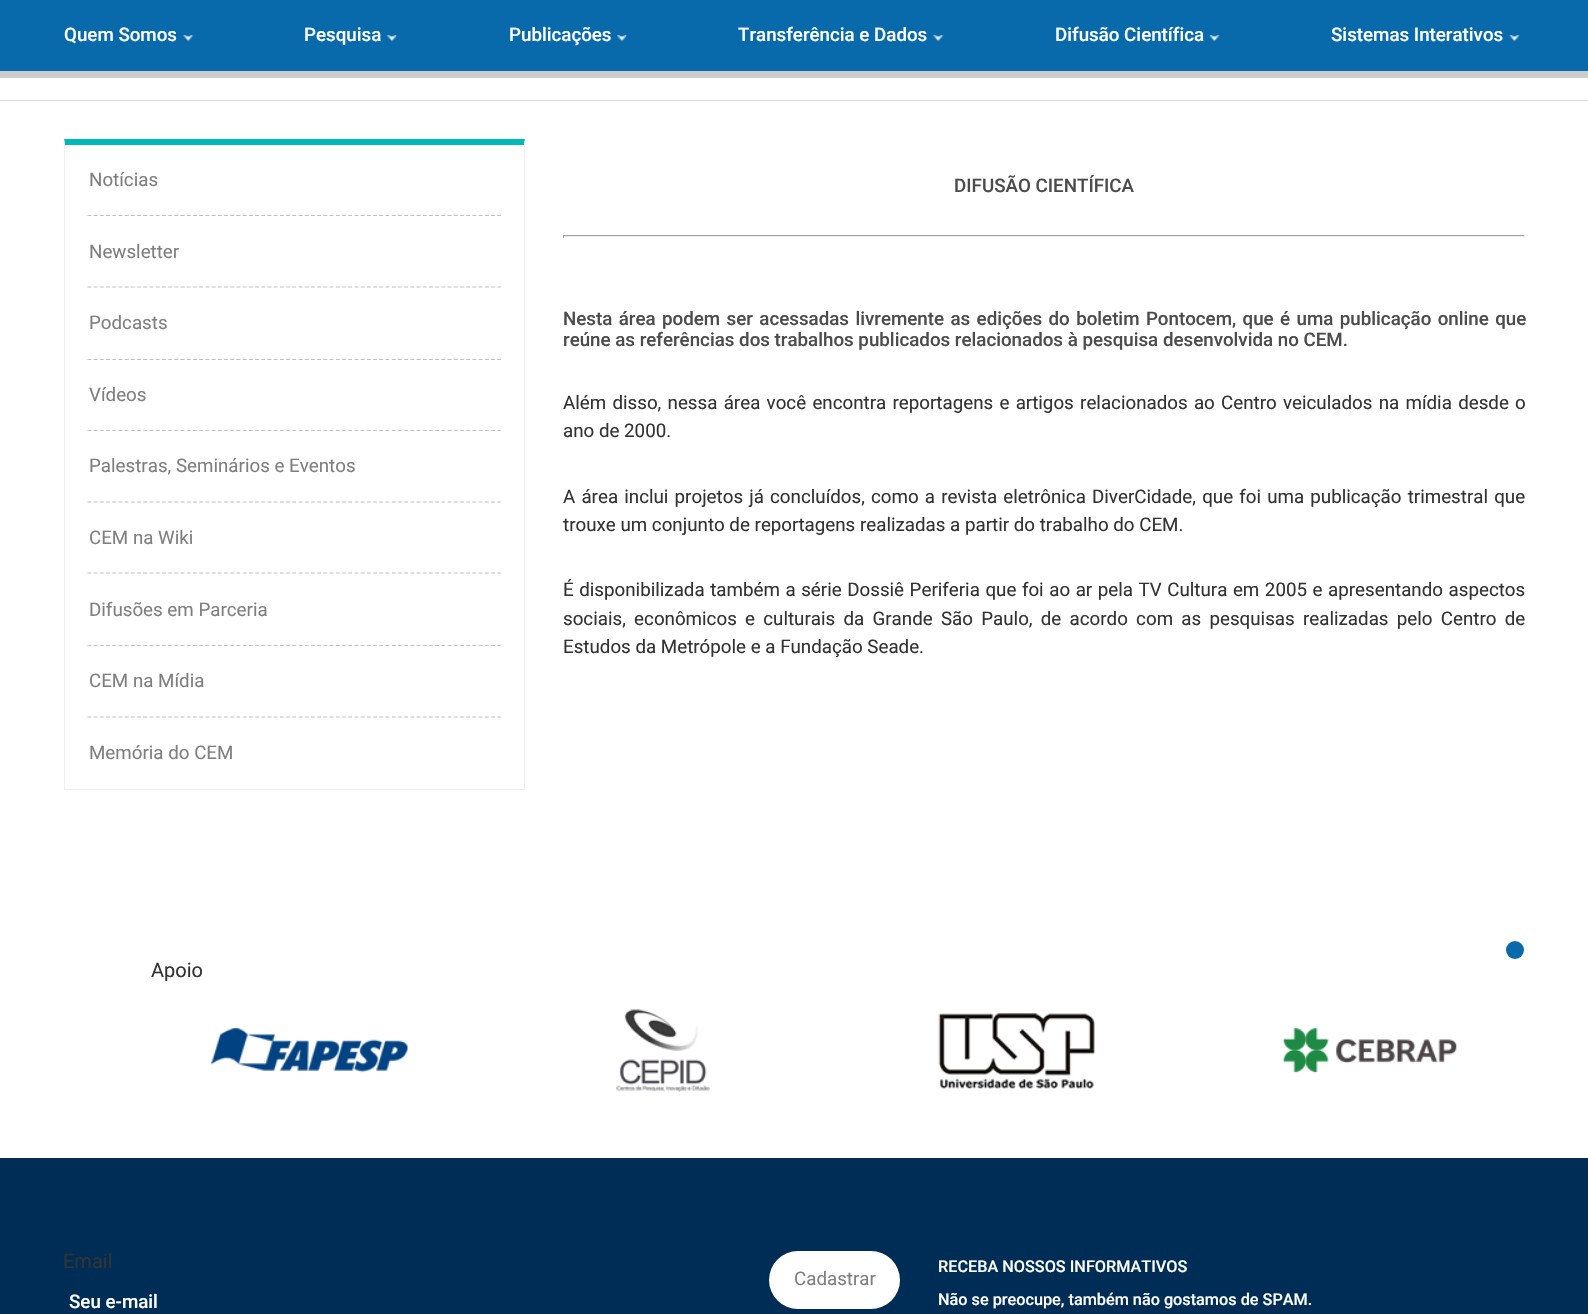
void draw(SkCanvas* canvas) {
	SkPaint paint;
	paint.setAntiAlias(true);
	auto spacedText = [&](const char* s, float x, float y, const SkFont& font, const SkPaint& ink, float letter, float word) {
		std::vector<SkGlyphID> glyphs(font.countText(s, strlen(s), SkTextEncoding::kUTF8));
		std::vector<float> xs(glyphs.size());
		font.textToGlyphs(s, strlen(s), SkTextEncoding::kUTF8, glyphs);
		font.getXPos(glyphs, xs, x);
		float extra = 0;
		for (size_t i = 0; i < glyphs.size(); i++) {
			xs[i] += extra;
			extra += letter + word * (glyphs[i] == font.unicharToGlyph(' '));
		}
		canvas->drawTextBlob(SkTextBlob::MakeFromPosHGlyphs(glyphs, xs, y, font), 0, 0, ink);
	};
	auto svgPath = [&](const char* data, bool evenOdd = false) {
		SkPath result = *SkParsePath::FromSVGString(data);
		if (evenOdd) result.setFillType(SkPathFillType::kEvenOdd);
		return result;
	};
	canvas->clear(0xffffffff);
	paint.setColor(0xff086aab);
	canvas->drawRect(SkRect::MakeXYWH(0, 0, 1588, 71), paint);
	paint.setColor(0xffcccccc);
	canvas->drawRect(SkRect::MakeXYWH(0, 71, 1588, 7), paint);
	SkFont f1(fontMgr->matchFamilyStyle("Roboto", SkFontStyle(500, SkFontStyle::kNormal_Width, SkFontStyle::kUpright_Slant)), 18.75);
	f1.setSubpixel(true);
	paint.setColor(0xffffffff);
	canvas->drawString("Quem Somos", 64, 41, f1, paint);
	canvas->drawImageRect(SkImages::DeferredFromEncodedData(SkData::MakeFromFileName("img1.png")), SkRect::MakeXYWH(183, 35, 11, 7), SkSamplingOptions());
	canvas->drawString("Pesquisa", 304, 41, f1, paint);
	canvas->drawImageRect(SkImages::DeferredFromEncodedData(SkData::MakeFromFileName("img2.png")), SkRect::MakeXYWH(387, 35, 10, 7), SkSamplingOptions());
	canvas->drawString("Publicações", 509, 41, f1, paint);
	canvas->drawImageRect(SkImages::DeferredFromEncodedData(SkData::MakeFromFileName("img2.png")), SkRect::MakeXYWH(617, 35, 10, 7), SkSamplingOptions());
	canvas->drawString("Transferência e Dados", 738, 41, f1, paint);
	canvas->drawImageRect(SkImages::DeferredFromEncodedData(SkData::MakeFromFileName("img1.png")), SkRect::MakeXYWH(933, 35, 11, 7), SkSamplingOptions());
	canvas->drawString("Difusão Científica", 1055, 41, f1, paint);
	canvas->drawImageRect(SkImages::DeferredFromEncodedData(SkData::MakeFromFileName("img3.png")), SkRect::MakeXYWH(1209, 35, 11, 7), SkSamplingOptions());
	canvas->drawString("Sistemas Interativos", 1331, 41, f1, paint);
	canvas->drawImageRect(SkImages::DeferredFromEncodedData(SkData::MakeFromFileName("img3.png")), SkRect::MakeXYWH(1509, 35, 11, 7), SkSamplingOptions());
	paint.setColor(0xffdcdcdc);
	canvas->drawRect(SkRect::MakeXYWH(0, 100, 1588, 1), paint);
	paint.setColor(0xff00b9b9);
	canvas->drawPath(svgPath("M64 139H525L524 145H65Z"), paint);
	paint.setColor(0xfff0f0f0);
	canvas->drawPath(svgPath("M525 139V790L524 789V145Z"), paint);
	canvas->drawRect(SkRect::MakeXYWH(64, 789, 461, 1), paint);
	canvas->drawPath(svgPath("M64 790V139L65 145V789Z"), paint);
	SkFont f2(fontMgr->matchFamilyStyle("Roboto", SkFontStyle::Normal()), 18.75);
	f2.setSubpixel(true);
	paint.setColor(0xff7f7f7f);
	canvas->drawString("Notícias", 89, 186, f2, paint);
	paint.setStroke(true);
	paint.setStrokeWidth(1.2);
	paint.setColor(0xffc0c0c0);
	paint.setPathEffect(SkDashPathEffect::Make({{3.75f, 2.46f}}, 0));
	canvas->drawPath(svgPath("M87.5 215.5H501"), paint);
	paint.setPathEffect(nullptr);
	paint.setStroke(false);
	paint.setColor(0xff7f7f7f);
	canvas->drawString("Newsletter", 89, 258, f2, paint);
	paint.setStroke(true);
	paint.setColor(0xffc0c0c0);
	paint.setPathEffect(SkDashPathEffect::Make({{3.75f, 2.46f}}, 0));
	canvas->drawPath(svgPath("M87.5 287H501"), paint);
	paint.setPathEffect(nullptr);
	paint.setStroke(false);
	paint.setColor(0xff7f7f7f);
	canvas->drawString("Podcasts", 89, 329, f2, paint);
	paint.setStroke(true);
	paint.setColor(0xffc0c0c0);
	paint.setPathEffect(SkDashPathEffect::Make({{3.75f, 2.46f}}, 0));
	canvas->drawPath(svgPath("M87.5 359.5H501"), paint);
	paint.setPathEffect(nullptr);
	paint.setStroke(false);
	paint.setColor(0xff7f7f7f);
	canvas->drawString("Vídeos", 89, 401, f2, paint);
	paint.setStroke(true);
	paint.setColor(0xffc0c0c0);
	paint.setPathEffect(SkDashPathEffect::Make({{3.75f, 2.46f}}, 0));
	canvas->drawPath(svgPath("M87.5 430.5H501"), paint);
	paint.setPathEffect(nullptr);
	paint.setStroke(false);
	paint.setColor(0xff7f7f7f);
	canvas->drawString("Palestras, Seminários e Eventos", 89, 472, f2, paint);
	paint.setStroke(true);
	paint.setColor(0xffc0c0c0);
	paint.setPathEffect(SkDashPathEffect::Make({{3.75f, 2.46f}}, 0));
	canvas->drawPath(svgPath("M87.5 502H501"), paint);
	paint.setPathEffect(nullptr);
	paint.setStroke(false);
	paint.setColor(0xff7f7f7f);
	canvas->drawString("CEM na Wiki", 89, 544, f2, paint);
	paint.setStroke(true);
	paint.setColor(0xffc0c0c0);
	paint.setPathEffect(SkDashPathEffect::Make({{3.75f, 2.46f}}, 0));
	canvas->drawPath(svgPath("M87.5 573H501"), paint);
	paint.setPathEffect(nullptr);
	paint.setStroke(false);
	paint.setColor(0xff7f7f7f);
	canvas->drawString("Difusões em Parceria", 89, 616, f2, paint);
	paint.setStroke(true);
	paint.setColor(0xffc0c0c0);
	paint.setPathEffect(SkDashPathEffect::Make({{3.75f, 2.46f}}, 0));
	canvas->drawPath(svgPath("M87.5 645.5H501"), paint);
	paint.setPathEffect(nullptr);
	paint.setStroke(false);
	paint.setColor(0xff7f7f7f);
	canvas->drawString("CEM na Mídia", 89, 687, f2, paint);
	paint.setStroke(true);
	paint.setColor(0xffc0c0c0);
	paint.setPathEffect(SkDashPathEffect::Make({{3.75f, 2.46f}}, 0));
	canvas->drawPath(svgPath("M87.5 717H501"), paint);
	paint.setPathEffect(nullptr);
	paint.setStroke(false);
	paint.setColor(0xff7f7f7f);
	canvas->drawString("Memória do CEM", 89, 759, f2, paint);
	paint.setColor(0xff4c4c4c);
	canvas->drawString("DIFUSÃO CIENTÍFICA", 954, 192, f1, paint);
	paint.setColor(0xff9f9f9f);
	canvas->drawRect(SkRect::MakeXYWH(563, 235, 962, 1), paint);
	paint.setColor(0xffeeeeee);
	canvas->drawRect(SkRect::MakeXYWH(1524, 235, 1, 3), paint);
	canvas->drawRect(SkRect::MakeXYWH(563, 236, 962, 1), paint);
	paint.setColor(0xff9f9f9f);
	canvas->drawRect(SkRect::MakeXYWH(563, 235, 1, 3), paint);
	paint.setColor(0xff4c4c4c);
	spacedText("Nesta área podem ser acessadas livremente as edições do boletim Pontocem, que é uma publicação online que", 563, 325, f1, paint, 0, 1.75);
	canvas->drawString("reúne as referências dos trabalhos publicados relacionados à pesquisa desenvolvida no CEM.", 563, 346, f1, paint);
	paint.setColor(0xff333333);
	spacedText("Além disso, nessa área você encontra reportagens e artigos relacionados ao Centro veiculados na mídia desde o", 563, 409, f2, paint, 0, 1.6);
	canvas->drawString("ano de 2000.", 563, 437, f2, paint);
	spacedText("A área inclui projetos já concluídos, como a revista eletrônica DiverCidade, que foi uma publicação trimestral que", 563, 503, f2, paint, 0, 1.5);
	canvas->drawString("trouxe um conjunto de reportagens realizadas a partir do trabalho do CEM.", 563, 531, f2, paint);
	spacedText("É disponibilizada também a série Dossiê Periferia que foi ao ar pela TV Cultura em 2005 e apresentando aspectos", 563, 596, f2, paint, 0, 0.9);
	spacedText("sociais, econômicos e culturais da Grande São Paulo, de acordo com as pesquisas realizadas pelo Centro de", 563, 625, f2, paint, 0, 3.6);
	canvas->drawString("Estudos da Metrópole e a Fundação Seade.", 563, 653, f2, paint);
	SkFont f3(fontMgr->matchFamilyStyle("Roboto", SkFontStyle::Normal()), 20);
	f3.setSubpixel(true);
	canvas->drawString("Apoio", 151, 977, f3, paint);
	paint.setColor(0xff086aab);
	canvas->drawCircle(1515, 950, 9, paint);
	canvas->drawImageRect(SkImages::DeferredFromEncodedData(SkData::MakeFromFileName("img4.png")), SkRect::MakeXYWH(211, 1028, 197, 45), SkSamplingOptions());
	canvas->drawImageRect(SkImages::DeferredFromEncodedData(SkData::MakeFromFileName("img5.png")), SkRect::MakeXYWH(616, 1009, 94, 83), SkSamplingOptions());
	canvas->drawImageRect(SkImages::DeferredFromEncodedData(SkData::MakeFromFileName("img6.png")), SkRect::MakeXYWH(938, 1013, 157, 76), SkSamplingOptions());
	canvas->drawImageRect(SkImages::DeferredFromEncodedData(SkData::MakeFromFileName("img7.png")), SkRect::MakeXYWH(1283, 1028, 174, 45), SkSamplingOptions());
	paint.setColor(0xff002d55);
	canvas->drawRect(SkRect::MakeXYWH(0, 1158, 1588, 156), paint);
	paint.setColor(0xff333333);
	canvas->drawString("Email", 63, 1268, f3, paint);
	paint.setColor(0xffffffff);
	canvas->drawString("Seu e-mail", 69, 1308, f1, paint);
	canvas->drawRoundRect(SkRect::MakeXYWH(769, 1251, 131, 58), 29, 29, paint);
	paint.setColor(0xff7f7f7f);
	canvas->drawString("Cadastrar", 794, 1285, f2, paint);
	SkFont f4(fontMgr->matchFamilyStyle("Roboto", SkFontStyle(500, SkFontStyle::kNormal_Width, SkFontStyle::kUpright_Slant)), 16.25);
	f4.setSubpixel(true);
	paint.setColor(0xffffffff);
	canvas->drawString("RECEBA NOSSOS INFORMATIVOS", 938, 1272, f4, paint);
	canvas->drawString("Não se preocupe, também não gostamos de SPAM.", 938, 1305, f4, paint);
}
